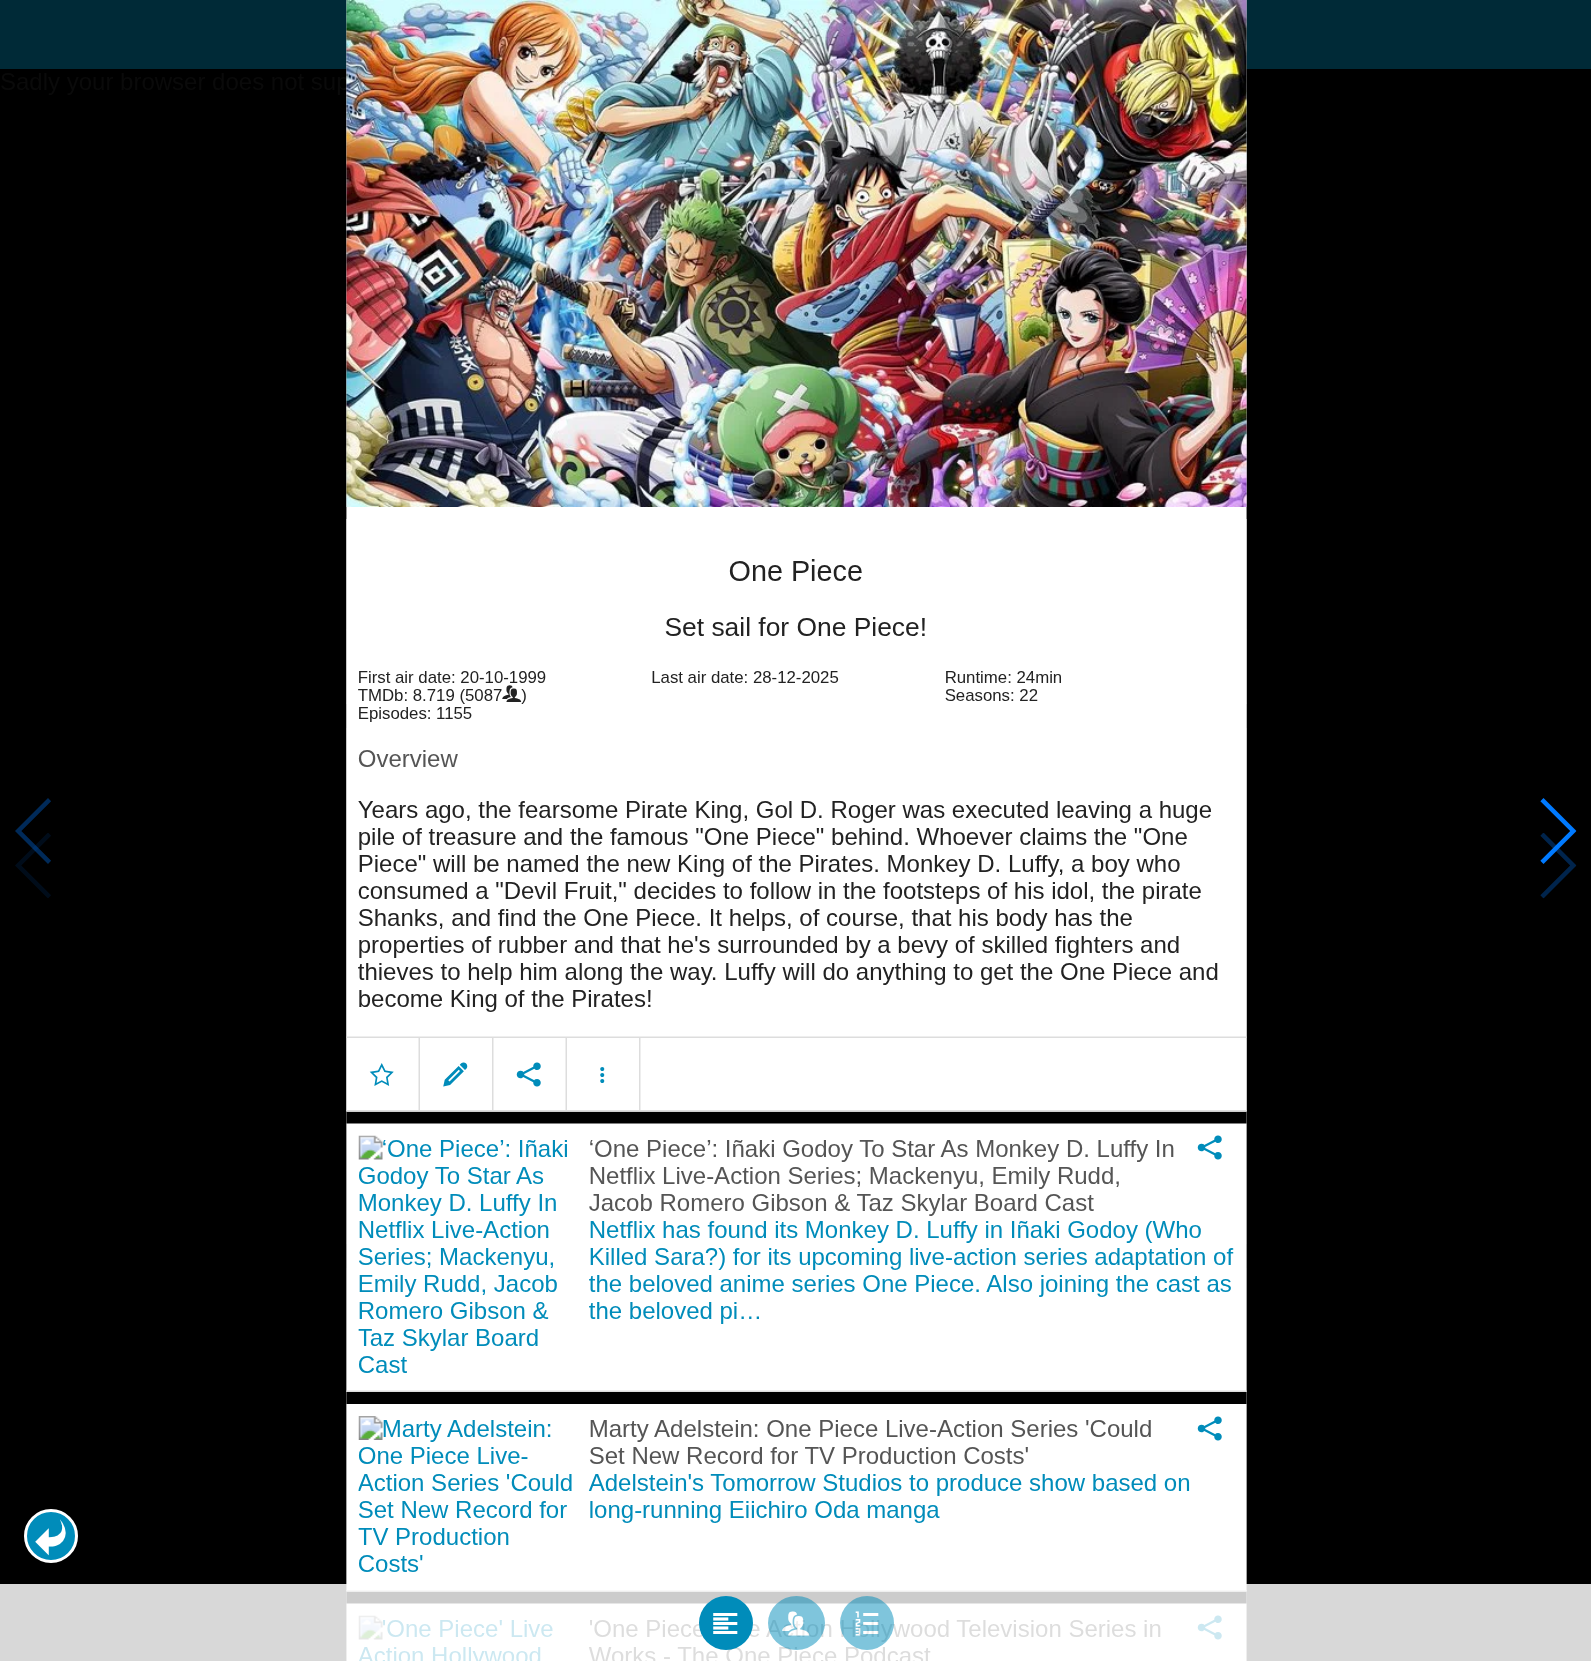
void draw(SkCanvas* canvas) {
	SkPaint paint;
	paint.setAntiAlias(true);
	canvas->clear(0xffffffff);
	canvas->drawImageRect(SkImages::DeferredFromEncodedData(SkData::MakeFromFileName("img1.png")), SkRect::MakeXYWH(0, 0, 1591, 1661), SkSamplingOptions());
}
